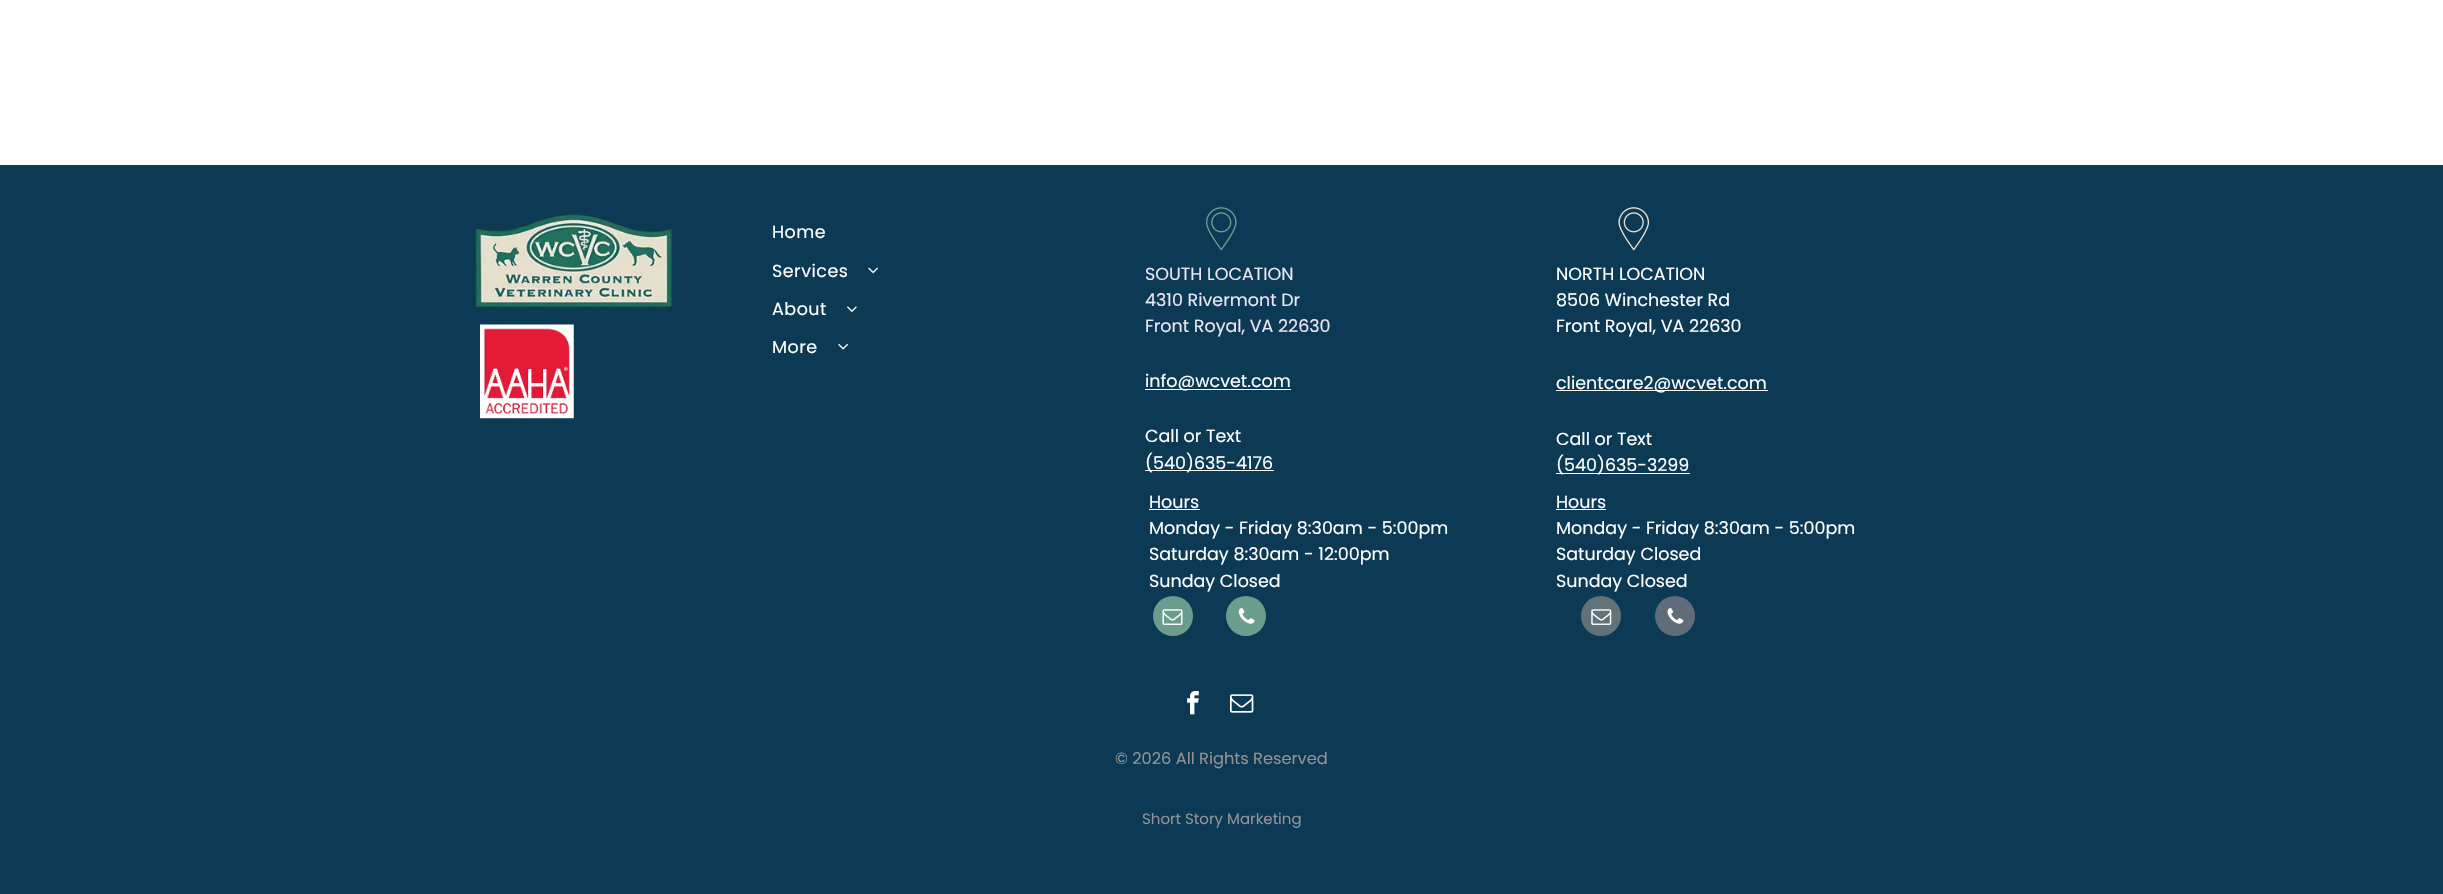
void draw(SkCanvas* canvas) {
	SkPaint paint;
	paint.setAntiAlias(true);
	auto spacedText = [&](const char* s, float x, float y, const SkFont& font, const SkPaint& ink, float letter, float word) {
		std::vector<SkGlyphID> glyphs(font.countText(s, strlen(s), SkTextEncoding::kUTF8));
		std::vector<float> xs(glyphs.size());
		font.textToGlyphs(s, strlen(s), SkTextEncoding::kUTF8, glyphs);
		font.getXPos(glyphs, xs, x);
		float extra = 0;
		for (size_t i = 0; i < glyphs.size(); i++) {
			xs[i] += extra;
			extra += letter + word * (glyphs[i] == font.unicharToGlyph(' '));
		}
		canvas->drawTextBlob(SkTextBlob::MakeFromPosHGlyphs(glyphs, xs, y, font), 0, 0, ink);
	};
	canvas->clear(0xffffffff);
	paint.setColor(0xff0c3954);
	canvas->drawRect(SkRect::MakeXYWH(0, 165, 2443, 729), paint);
	canvas->drawImageRect(SkImages::DeferredFromEncodedData(SkData::MakeFromFileName("img1.png")), SkRect::MakeXYWH(475, 214, 197, 94), SkSamplingOptions());
	canvas->drawImageRect(SkImages::DeferredFromEncodedData(SkData::MakeFromFileName("img2.png")), SkRect::MakeXYWH(480, 324, 94, 95), SkSamplingOptions());
	SkFont f1(fontMgr->matchFamilyStyle("Poppins", SkFontStyle::Normal()), 17.5);
	f1.setSubpixel(true);
	paint.setColor(0xffffffff);
	spacedText("Home", 772, 238, f1, paint, 0.5, 0);
	spacedText("Services", 772, 277, f1, paint, 0.5, 0);
	canvas->drawImageRect(SkImages::DeferredFromEncodedData(SkData::MakeFromFileName("img3.png")), SkRect::MakeXYWH(868, 267, 10, 7), SkSamplingOptions());
	spacedText("About", 772, 315, f1, paint, 0.5, 0);
	canvas->drawImageRect(SkImages::DeferredFromEncodedData(SkData::MakeFromFileName("img4.png")), SkRect::MakeXYWH(847, 306, 10, 6), SkSamplingOptions());
	spacedText("More", 772, 353, f1, paint, 0.5, 0);
	canvas->drawImageRect(SkImages::DeferredFromEncodedData(SkData::MakeFromFileName("img5.png")), SkRect::MakeXYWH(838, 343, 10, 7), SkSamplingOptions());
	canvas->drawImageRect(SkImages::DeferredFromEncodedData(SkData::MakeFromFileName("img6.png")), SkRect::MakeXYWH(1205, 207, 32, 44), SkSamplingOptions());
	paint.setColor(0xffeae6f3);
	canvas->drawString("SOUTH LOCATION", 1145, 280, f1, paint);
	canvas->drawString("4310 Rivermont Dr", 1145, 306, f1, paint);
	canvas->drawString("Front Royal, VA 22630", 1145, 332, f1, paint);
	paint.setColor(0xffffffff);
	canvas->drawRect(SkRect::MakeXYWH(1145, 389, 146, 1), paint);
	canvas->drawString("info@wcvet.com", 1145, 387, f1, paint);
	canvas->drawString("Call or Text", 1145, 442, f1, paint);
	canvas->drawRect(SkRect::MakeXYWH(1145, 470, 129, 1), paint);
	canvas->drawString("(540)635-4176", 1145, 469, f1, paint);
	canvas->drawString("Hours", 1149, 508, f1, paint);
	canvas->drawRect(SkRect::MakeXYWH(1149, 509, 51, 1), paint);
	canvas->drawString("Monday - Friday 8:30am - 5:00pm", 1149, 534, f1, paint);
	canvas->drawString("Saturday 8:30am - 12:00pm", 1149, 560, f1, paint);
	canvas->drawString("Sunday Closed", 1149, 587, f1, paint);
	paint.setColor(0xff6c9c8e);
	canvas->drawCircle(1173, 616, 20, paint);
	canvas->drawImageRect(SkImages::DeferredFromEncodedData(SkData::MakeFromFileName("img7.png")), SkRect::MakeXYWH(1162, 609, 21, 16), SkSamplingOptions());
	canvas->drawCircle(1246, 616, 20, paint);
	canvas->drawImageRect(SkImages::DeferredFromEncodedData(SkData::MakeFromFileName("img8.png")), SkRect::MakeXYWH(1238, 608, 17, 16), SkSamplingOptions());
	canvas->drawImageRect(SkImages::DeferredFromEncodedData(SkData::MakeFromFileName("img9.png")), SkRect::MakeXYWH(1618, 207, 32, 44), SkSamplingOptions());
	paint.setColor(0xffffffff);
	canvas->drawString("NORTH LOCATION", 1556, 280, f1, paint);
	canvas->drawString("8506 Winchester Rd", 1556, 306, f1, paint);
	canvas->drawString("Front Royal, VA 22630", 1556, 332, f1, paint);
	canvas->drawRect(SkRect::MakeXYWH(1556, 390, 212, 1), paint);
	canvas->drawString("clientcare2@wcvet.com", 1556, 389, f1, paint);
	canvas->drawString("Call or Text", 1556, 445, f1, paint);
	canvas->drawRect(SkRect::MakeXYWH(1556, 473, 134, 1), paint);
	canvas->drawString("(540)635-3299", 1556, 471, f1, paint);
	canvas->drawString("Hours", 1556, 508, f1, paint);
	canvas->drawRect(SkRect::MakeXYWH(1556, 509, 50, 1), paint);
	canvas->drawString("Monday - Friday 8:30am - 5:00pm", 1556, 534, f1, paint);
	canvas->drawString("Saturday Closed", 1556, 560, f1, paint);
	canvas->drawString("Sunday Closed", 1556, 587, f1, paint);
	paint.setColor(0xff617379);
	canvas->drawCircle(1601, 616, 20, paint);
	canvas->drawImageRect(SkImages::DeferredFromEncodedData(SkData::MakeFromFileName("img10.png")), SkRect::MakeXYWH(1591, 609, 21, 16), SkSamplingOptions());
	paint.setColor(0xff616c79);
	canvas->drawCircle(1675, 616, 20, paint);
	canvas->drawImageRect(SkImages::DeferredFromEncodedData(SkData::MakeFromFileName("img11.png")), SkRect::MakeXYWH(1667, 608, 17, 16), SkSamplingOptions());
	canvas->drawImageRect(SkImages::DeferredFromEncodedData(SkData::MakeFromFileName("img12.png")), SkRect::MakeXYWH(1187, 691, 12, 24), SkSamplingOptions());
	canvas->drawImageRect(SkImages::DeferredFromEncodedData(SkData::MakeFromFileName("img13.png")), SkRect::MakeXYWH(1230, 694, 24, 19), SkSamplingOptions());
	SkFont f2(fontMgr->matchFamilyStyle("Poppins", SkFontStyle::Normal()), 16.25);
	f2.setSubpixel(true);
	paint.setColor(0xff939393);
	canvas->drawString("© 2026 All Rights Reserved", 1115, 764, f2, paint);
	SkFont f3(fontMgr->matchFamilyStyle("Poppins", SkFontStyle::Normal()), 15);
	f3.setSubpixel(true);
	canvas->drawString("Short Story Marketing", 1142, 824, f3, paint);
}
